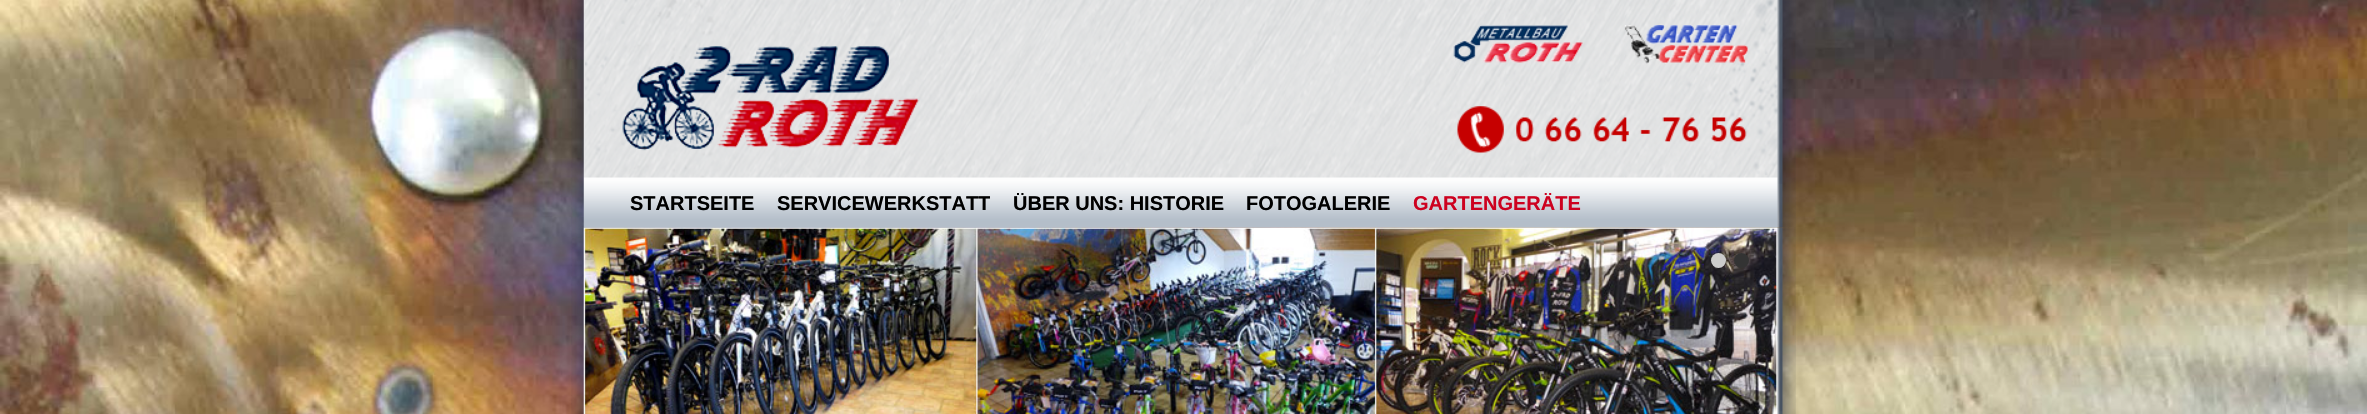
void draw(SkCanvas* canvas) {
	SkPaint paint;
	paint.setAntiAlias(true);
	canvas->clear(0xffffffff);
	canvas->drawImageRect(SkImages::DeferredFromEncodedData(SkData::MakeFromFileName("img1.png")), SkRect::MakeXYWH(0, 0, 2367, 414), SkSamplingOptions());
	canvas->drawImageRect(SkImages::DeferredFromEncodedData(SkData::MakeFromFileName("img7.png")), SkRect::MakeXYWH(571, 227, 1225, 187), SkSamplingOptions());
	canvas->drawImageRect(SkImages::DeferredFromEncodedData(SkData::MakeFromFileName("img2.png")), SkRect::MakeXYWH(571, 0, 1225, 228), SkSamplingOptions());
	canvas->drawImageRect(SkImages::DeferredFromEncodedData(SkData::MakeFromFileName("img3.png")), SkRect::MakeXYWH(622, 46, 297, 105), SkSamplingOptions());
	canvas->drawImageRect(SkImages::DeferredFromEncodedData(SkData::MakeFromFileName("img4.png")), SkRect::MakeXYWH(1453, 25, 130, 38), SkSamplingOptions());
	canvas->drawImageRect(SkImages::DeferredFromEncodedData(SkData::MakeFromFileName("img5.png")), SkRect::MakeXYWH(1624, 25, 125, 39), SkSamplingOptions());
	canvas->drawImageRect(SkImages::DeferredFromEncodedData(SkData::MakeFromFileName("img6.png")), SkRect::MakeXYWH(1457, 106, 290, 47), SkSamplingOptions());
	SkFont f1(fontMgr->matchFamilyStyle("Liberation Sans", SkFontStyle::Bold()), 20);
	f1.setSubpixel(true);
	paint.setColor(0xff000000);
	canvas->drawString("STARTSEITE", 630, 210, f1, paint);
	canvas->drawString("SERVICEWERKSTATT", 777, 210, f1, paint);
	canvas->drawString("ÜBER UNS: HISTORIE", 1013, 210, f1, paint);
	canvas->drawString("FOTOGALERIE", 1246, 210, f1, paint);
	paint.setColor(0xffcd011f);
	canvas->drawString("GARTENGERÄTE", 1413, 210, f1, paint);
	canvas->drawImageRect(SkImages::DeferredFromEncodedData(SkData::MakeFromFileName("img8.png")), SkRect::MakeXYWH(583, 227, 1195, 187), SkSamplingOptions());
	paint.setColor(0xffcccccc);
	canvas->drawCircle(1718.5, 260.5, 7.5, paint);
	paint.setColor(0xff333333);
	canvas->drawCircle(1741.5, 260.5, 7.5, paint);
}
